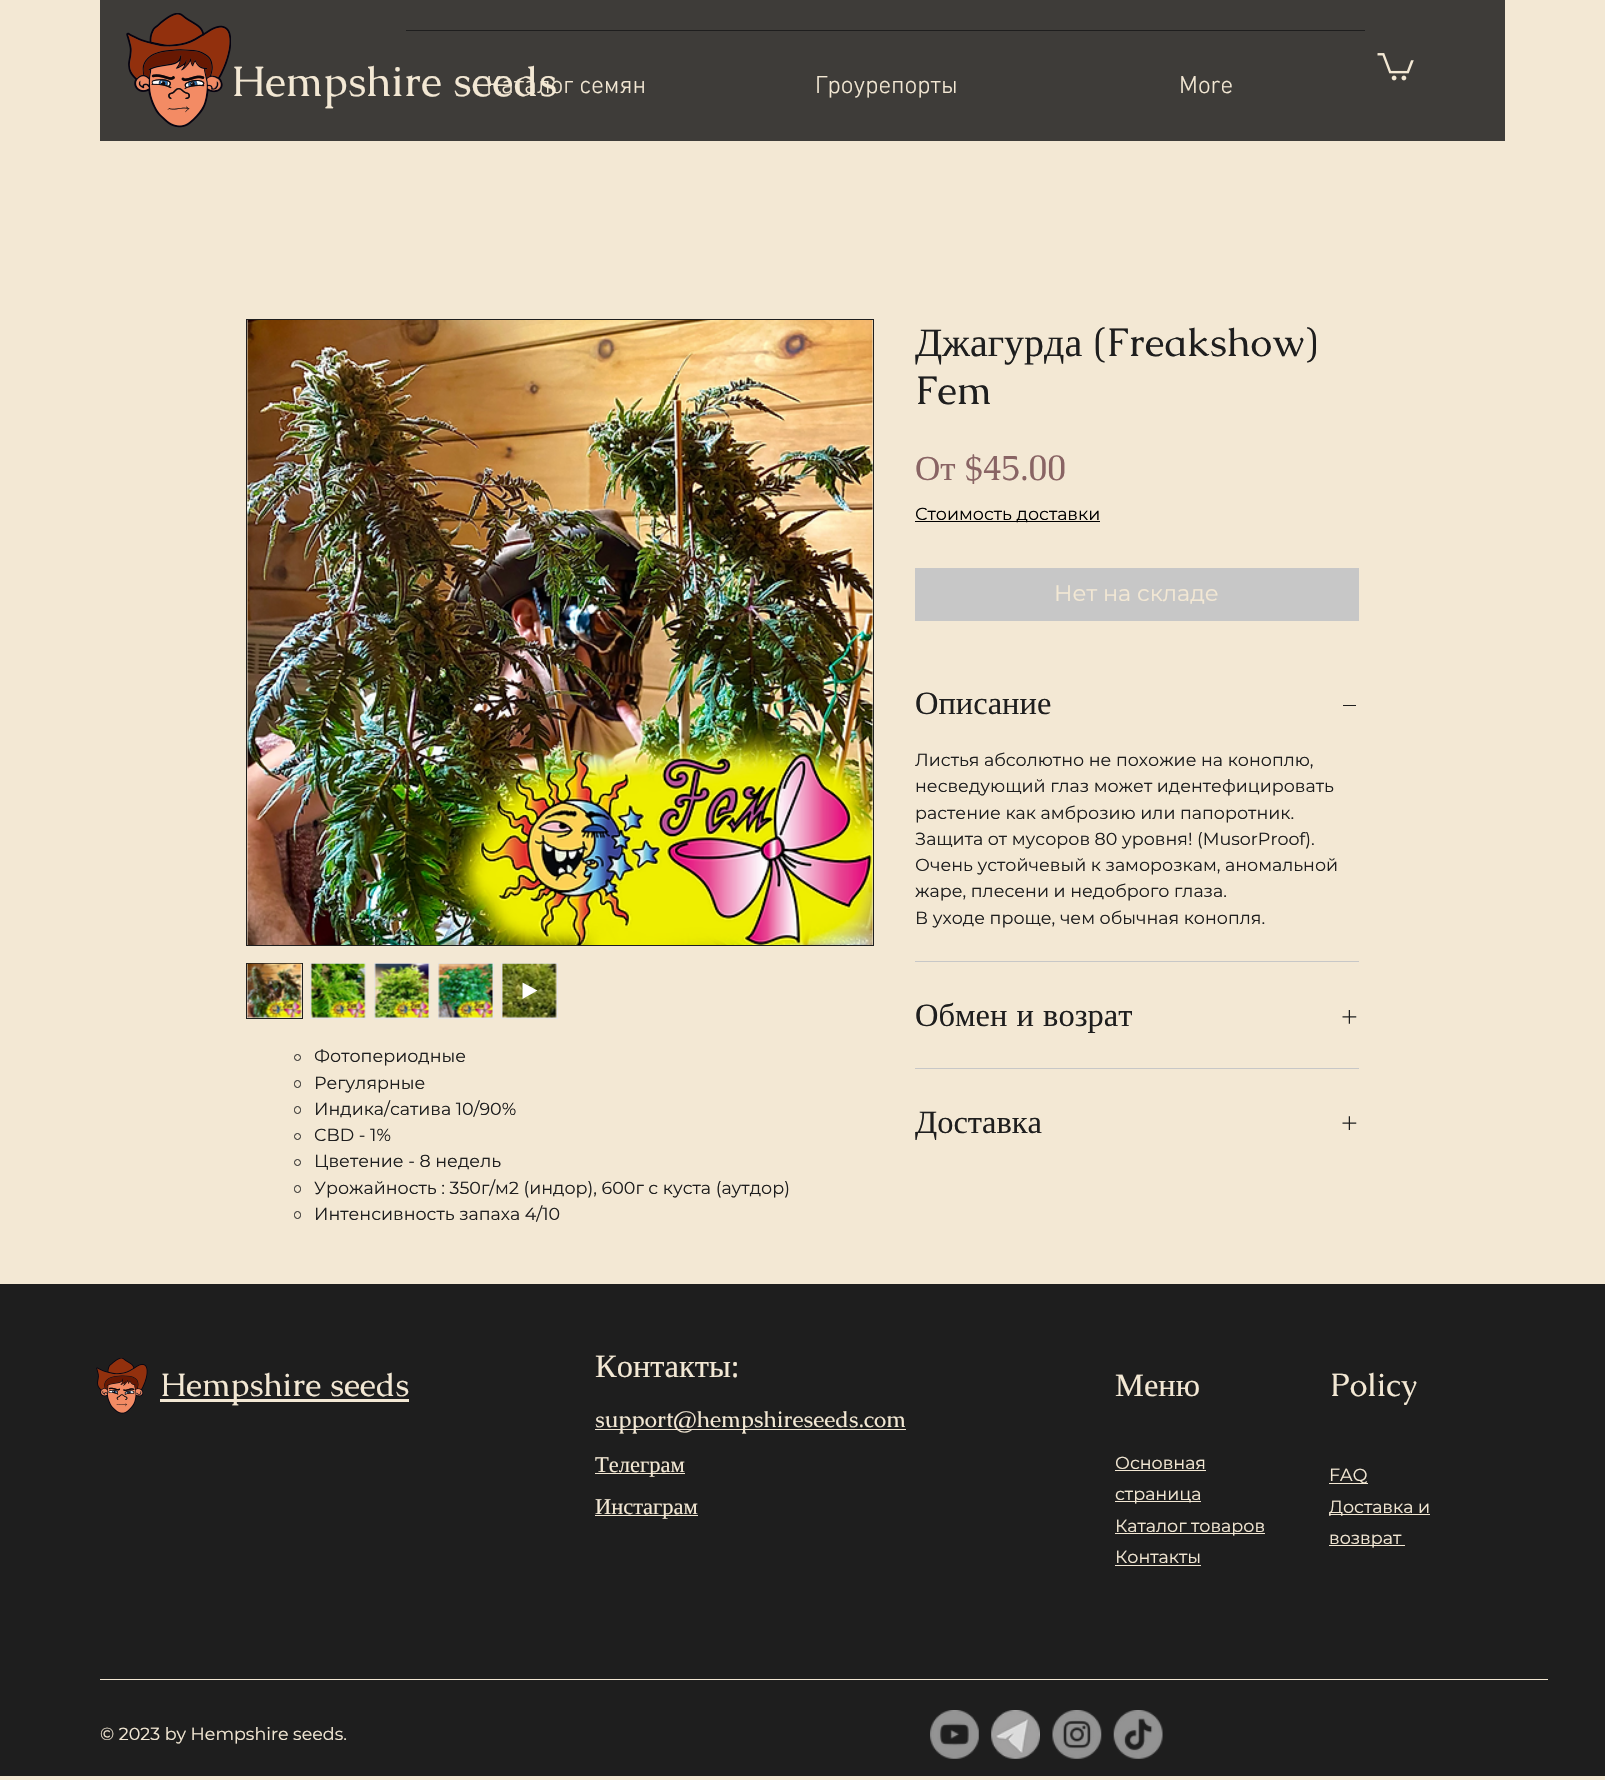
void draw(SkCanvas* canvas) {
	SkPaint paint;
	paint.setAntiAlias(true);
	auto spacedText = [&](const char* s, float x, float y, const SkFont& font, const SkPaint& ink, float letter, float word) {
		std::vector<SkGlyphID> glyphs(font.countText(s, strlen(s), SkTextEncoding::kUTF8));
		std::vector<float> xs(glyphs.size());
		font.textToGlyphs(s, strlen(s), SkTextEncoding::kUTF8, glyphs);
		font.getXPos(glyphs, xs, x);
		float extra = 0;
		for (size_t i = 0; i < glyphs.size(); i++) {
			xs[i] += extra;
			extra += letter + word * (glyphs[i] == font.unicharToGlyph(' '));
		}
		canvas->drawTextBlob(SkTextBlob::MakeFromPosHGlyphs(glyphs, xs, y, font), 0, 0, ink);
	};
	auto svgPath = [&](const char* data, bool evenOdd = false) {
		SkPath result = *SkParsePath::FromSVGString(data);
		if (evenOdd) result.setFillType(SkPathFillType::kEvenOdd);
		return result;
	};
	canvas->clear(0xfff3e8d4);
	paint.setColor(0xff3e3c39);
	canvas->drawRect(SkRect::MakeXYWH(100, 0, 1405, 141), paint);
	canvas->drawImageRect(SkImages::DeferredFromEncodedData(SkData::MakeFromFileName("img1.png")), SkRect::MakeXYWH(126, 13, 105, 115), SkSamplingOptions());
	SkFont f1(fontMgr->matchFamilyStyle("Caudex", SkFontStyle::Normal()), 42.5);
	f1.setSubpixel(true);
	paint.setColor(0xfff3e8d4);
	canvas->drawString("Hempshire seeds", 231, 96, f1, paint);
	canvas->drawImageRect(SkImages::DeferredFromEncodedData(SkData::MakeFromFileName("img2.png")), SkRect::MakeXYWH(1377, 53, 37, 28), SkSamplingOptions());
	paint.setColor(0xff1e1e1e);
	canvas->drawRect(SkRect::MakeXYWH(406, 30, 959, 1), paint);
	SkFont f2(fontMgr->matchFamilyStyle("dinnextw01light", SkFontStyle(300, SkFontStyle::kNormal_Width, SkFontStyle::kUpright_Slant)), 25);
	f2.setSubpixel(true);
	paint.setColor(0xfff3e8d4);
	canvas->drawString("Каталог семян", 486, 93, f2, paint);
	canvas->drawString("Гроурепорты", 815, 93, f2, paint);
	canvas->drawString("More", 1179, 93, f2, paint);
	paint.setStroke(true);
	paint.setStrokeWidth(1);
	paint.setColor(0xff1e1e1e);
	canvas->drawRect(SkRect::MakeXYWH(246.5, 319.5, 627, 626), paint);
	canvas->drawImageRect(SkImages::DeferredFromEncodedData(SkData::MakeFromFileName("img3.png")), SkRect::MakeXYWH(247, 320, 626, 625), SkSamplingOptions());
	canvas->drawRect(SkRect::MakeXYWH(246.5, 963.5, 56, 55), paint);
	canvas->drawImageRect(SkImages::DeferredFromEncodedData(SkData::MakeFromFileName("img4.png")), SkRect::MakeXYWH(247, 963, 55, 55), SkSamplingOptions());
	paint.setColor(0xffe8e6e6);
	canvas->drawRect(SkRect::MakeXYWH(310.5, 963.5, 55, 55), paint);
	canvas->drawImageRect(SkImages::DeferredFromEncodedData(SkData::MakeFromFileName("img5.png")), SkRect::MakeXYWH(310, 963, 56, 55), SkSamplingOptions());
	canvas->drawRect(SkRect::MakeXYWH(374.5, 963.5, 55, 55), paint);
	canvas->drawImageRect(SkImages::DeferredFromEncodedData(SkData::MakeFromFileName("img6.png")), SkRect::MakeXYWH(374, 963, 56, 55), SkSamplingOptions());
	canvas->drawRect(SkRect::MakeXYWH(438.5, 963.5, 55, 55), paint);
	canvas->drawImageRect(SkImages::DeferredFromEncodedData(SkData::MakeFromFileName("img7.png")), SkRect::MakeXYWH(438, 963, 55, 55), SkSamplingOptions());
	canvas->drawRect(SkRect::MakeXYWH(501.5, 963.5, 56, 55), paint);
	canvas->drawImageRect(SkImages::DeferredFromEncodedData(SkData::MakeFromFileName("img8.png")), SkRect::MakeXYWH(502, 963, 55, 55), SkSamplingOptions());
	paint.setStroke(false);
	paint.setColor(0xffffffff);
	canvas->drawPath(svgPath("M522.5 982.5V999L537.5 990.5Z"), paint);
	paint.setStroke(true);
	paint.setColor(0xff1e1e1e);
	canvas->drawCircle(297.5, 1057.5, 3, paint);
	SkFont f3(fontMgr->matchFamilyStyle("Montserrat", SkFontStyle::Normal()), 17.5);
	f3.setSubpixel(true);
	paint.setStroke(false);
	canvas->drawString("Фотопериодные", 314, 1062, f3, paint);
	paint.setStroke(true);
	canvas->drawRoundRect(SkRect::MakeXYWH(294.5, 1080.5, 6, 7), 3, 3, paint);
	paint.setStroke(false);
	canvas->drawString("Регулярные", 314, 1089, f3, paint);
	paint.setStroke(true);
	canvas->drawRoundRect(SkRect::MakeXYWH(294.5, 1106.5, 6, 7), 3, 3, paint);
	paint.setStroke(false);
	canvas->drawString("Индика/сатива 10/90%", 314, 1115, f3, paint);
	paint.setStroke(true);
	canvas->drawCircle(297.5, 1136.5, 3, paint);
	paint.setStroke(false);
	canvas->drawString("CBD - 1%", 314, 1141, f3, paint);
	paint.setStroke(true);
	canvas->drawCircle(297.5, 1162.5, 3, paint);
	paint.setStroke(false);
	canvas->drawString("Цветение - 8 недель", 314, 1167, f3, paint);
	paint.setStroke(true);
	canvas->drawRoundRect(SkRect::MakeXYWH(294.5, 1185.5, 6, 7), 3, 3, paint);
	paint.setStroke(false);
	canvas->drawString("Урожайность : 350г/м2 (индор), 600г с куста (аутдор)", 314, 1194, f3, paint);
	paint.setStroke(true);
	canvas->drawRoundRect(SkRect::MakeXYWH(294.5, 1211.5, 6, 7), 3, 3, paint);
	paint.setStroke(false);
	canvas->drawString("Интенсивность запаха 4/10", 314, 1220, f3, paint);
	SkFont f4(fontMgr->matchFamilyStyle("Liberation Serif", SkFontStyle::Normal()), 40);
	f4.setSubpixel(true);
	canvas->drawString("Джагурда", 915, 356, f4, paint);
	SkFont f5(fontMgr->matchFamilyStyle("Caudex", SkFontStyle::Normal()), 40);
	f5.setSubpixel(true);
	canvas->drawString("(Freakshow)", 1093, 356, f5, paint);
	canvas->drawString("Fem", 915, 404, f5, paint);
	SkFont f6(fontMgr->matchFamilyStyle("Liberation Serif", SkFontStyle::Normal()), 35);
	f6.setSubpixel(true);
	paint.setColor(0xff896464);
	canvas->drawString("От", 915, 480, f6, paint);
	SkFont f7(fontMgr->matchFamilyStyle("Caudex", SkFontStyle::Normal()), 35);
	f7.setSubpixel(true);
	canvas->drawString("$45.00", 965, 480, f7, paint);
	paint.setColor(0xff000000);
	canvas->drawRect(SkRect::MakeXYWH(915, 521, 185, 1), paint);
	canvas->drawString("Стоимость доставки", 915, 520, f3, paint);
	paint.setColor(0xffc7c7c7);
	canvas->drawRect(SkRect::MakeXYWH(915, 568, 444, 53), paint);
	SkFont f8(fontMgr->matchFamilyStyle("Montserrat", SkFontStyle::Normal()), 22.5);
	f8.setSubpixel(true);
	paint.setColor(0xfff3e8d4);
	canvas->drawString("Нет на складе", 1054, 601, f8, paint);
	paint.setColor(0xffc7c7c7);
	canvas->drawRect(SkRect::MakeXYWH(915, 961, 444, 1), paint);
	SkFont f9(fontMgr->matchFamilyStyle("Liberation Serif", SkFontStyle::Normal()), 32.5);
	f9.setSubpixel(true);
	paint.setColor(0xff1e1e1e);
	canvas->drawString("Описание", 915, 714, f9, paint);
	canvas->drawRect(SkRect::MakeXYWH(1343, 705, 13, 1), paint);
	canvas->drawString("Листья абсолютно не похожие на коноплю,", 915, 766, f3, paint);
	canvas->drawString("несведующий глаз может идентефицировать", 915, 792, f3, paint);
	canvas->drawString("растение как амброзию или папоротник.", 915, 819, f3, paint);
	canvas->drawString("Защита от мусоров 80 уровня! (MusorProof).", 915, 845, f3, paint);
	canvas->drawString("Очень устойчевый к заморозкам, аномальной", 915, 871, f3, paint);
	canvas->drawString("жаре, плесени и недоброго глаза.", 915, 897, f3, paint);
	canvas->drawString("В уходе проще, чем обычная конопля.", 915, 924, f3, paint);
	paint.setColor(0xffc7c7c7);
	canvas->drawRect(SkRect::MakeXYWH(915, 1068, 444, 1), paint);
	paint.setColor(0xff1e1e1e);
	spacedText("Обмен и возрат", 915, 1026, f9, paint, 0, 1);
	canvas->drawImageRect(SkImages::DeferredFromEncodedData(SkData::MakeFromFileName("img9.png")), SkRect::MakeXYWH(1342, 1010, 15, 14), SkSamplingOptions());
	canvas->drawString("Доставка", 915, 1133, f9, paint);
	canvas->drawImageRect(SkImages::DeferredFromEncodedData(SkData::MakeFromFileName("img10.png")), SkRect::MakeXYWH(1342, 1116, 15, 14), SkSamplingOptions());
	canvas->drawRect(SkRect::MakeXYWH(0, 1284, 1605, 492), paint);
	canvas->drawImageRect(SkImages::DeferredFromEncodedData(SkData::MakeFromFileName("img11.png")), SkRect::MakeXYWH(96, 1358, 52, 56), SkSamplingOptions());
	paint.setColor(0xfff3e8d4);
	canvas->drawRect(SkRect::MakeXYWH(160, 1399, 249, 3), paint);
	SkFont f10(fontMgr->matchFamilyStyle("Caudex", SkFontStyle::Normal()), 32.5);
	f10.setSubpixel(true);
	canvas->drawString("Hempshire seeds", 160, 1396, f10, paint);
	canvas->drawString("Контакты", 595, 1377, f9, paint);
	canvas->drawString(":", 731, 1377, f10, paint);
	canvas->drawRect(SkRect::MakeXYWH(595, 1429, 311, 1), paint);
	SkFont f11(fontMgr->matchFamilyStyle("Caudex", SkFontStyle::Normal()), 22.5);
	f11.setSubpixel(true);
	canvas->drawString("support@hempshireseeds.com", 595, 1427, f11, paint);
	canvas->drawRect(SkRect::MakeXYWH(595, 1473, 90, 1), paint);
	SkFont f12(fontMgr->matchFamilyStyle("Liberation Serif", SkFontStyle::Normal()), 22.5);
	f12.setSubpixel(true);
	canvas->drawString("Телеграм", 595, 1472, f12, paint);
	canvas->drawRect(SkRect::MakeXYWH(595, 1515, 103, 1), paint);
	canvas->drawString("Инстаграм", 595, 1514, f12, paint);
	canvas->drawString("Меню", 1115, 1396, f9, paint);
	canvas->drawString("Policy", 1330, 1396, f10, paint);
	canvas->drawString("Основная", 1115, 1469, f3, paint);
	canvas->drawRect(SkRect::MakeXYWH(1115, 1470, 91, 1), paint);
	canvas->drawRect(SkRect::MakeXYWH(1115, 1501, 86, 1), paint);
	canvas->drawString("страница", 1115, 1500, f3, paint);
	canvas->drawRect(SkRect::MakeXYWH(1115, 1533, 150, 1), paint);
	canvas->drawString("Каталог товаров", 1115, 1532, f3, paint);
	canvas->drawString("Контакты", 1115, 1563, f3, paint);
	canvas->drawRect(SkRect::MakeXYWH(1115, 1565, 86, 1), paint);
	canvas->drawRect(SkRect::MakeXYWH(1329, 1483, 39, 1), paint);
	canvas->drawString("FAQ", 1329, 1481, f3, paint);
	canvas->drawRect(SkRect::MakeXYWH(1329, 1514, 101, 1), paint);
	canvas->drawString("Доставка и", 1329, 1513, f3, paint);
	canvas->drawRect(SkRect::MakeXYWH(1329, 1545, 76, 1), paint);
	canvas->drawString("возврат", 1329, 1544, f3, paint);
	canvas->drawRect(SkRect::MakeXYWH(100, 1679, 1448, 1), paint);
	canvas->drawString("© 2023 by Hempshire seeds.", 100, 1740, f3, paint);
	canvas->drawImageRect(SkImages::DeferredFromEncodedData(SkData::MakeFromFileName("img12.png")), SkRect::MakeXYWH(930, 1710, 49, 49), SkSamplingOptions());
	canvas->drawImageRect(SkImages::DeferredFromEncodedData(SkData::MakeFromFileName("img13.png")), SkRect::MakeXYWH(991, 1710, 49, 49), SkSamplingOptions());
	canvas->drawImageRect(SkImages::DeferredFromEncodedData(SkData::MakeFromFileName("img14.png")), SkRect::MakeXYWH(1052, 1710, 50, 49), SkSamplingOptions());
	canvas->drawImageRect(SkImages::DeferredFromEncodedData(SkData::MakeFromFileName("img15.png")), SkRect::MakeXYWH(1113, 1710, 50, 49), SkSamplingOptions());
}
